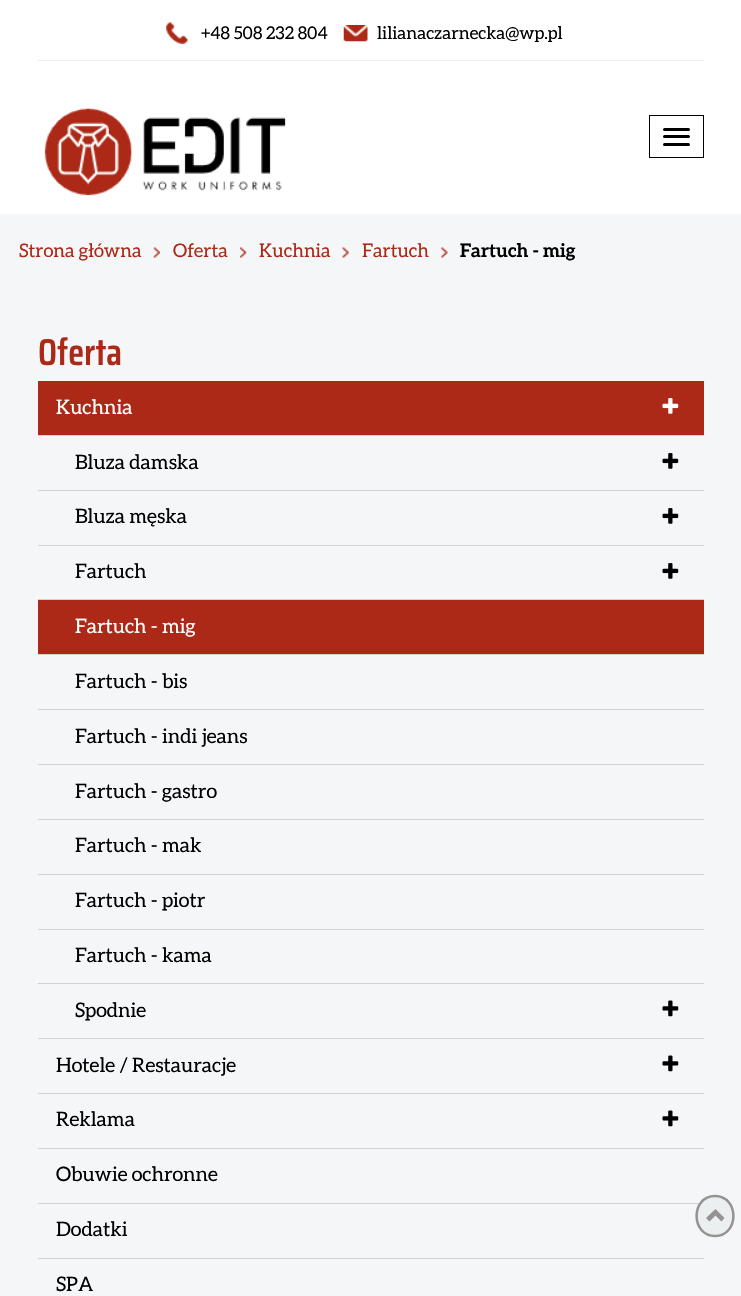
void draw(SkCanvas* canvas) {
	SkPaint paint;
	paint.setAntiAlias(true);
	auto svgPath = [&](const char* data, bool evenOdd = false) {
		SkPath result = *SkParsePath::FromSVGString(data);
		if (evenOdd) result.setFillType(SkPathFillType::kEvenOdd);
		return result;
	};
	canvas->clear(0xfff4f6f7);
	paint.setColor(0xffffffff);
	canvas->drawRect(SkRect::MakeXYWH(0, 0, 741, 214), paint);
	paint.setColor(0xffededed);
	canvas->drawRect(SkRect::MakeXYWH(38, 60, 666, 1), paint);
	canvas->drawImageRect(SkImages::DeferredFromEncodedData(SkData::MakeFromFileName("img1.png")), SkRect::MakeXYWH(166, 22, 22, 22), SkSamplingOptions());
	SkFont f1(fontMgr->matchFamilyStyle("Aleo", SkFontStyle::Normal()), 17.5);
	f1.setSubpixel(true);
	paint.setColor(0xff000000);
	canvas->drawString("+48 508 232 804", 201, 39, f1, paint);
	canvas->drawImageRect(SkImages::DeferredFromEncodedData(SkData::MakeFromFileName("img2.png")), SkRect::MakeXYWH(343, 25, 25, 17), SkSamplingOptions());
	canvas->drawString("lilianaczarnecka@wp.pl", 377, 39, f1, paint);
	canvas->drawImageRect(SkImages::DeferredFromEncodedData(SkData::MakeFromFileName("img3.png")), SkRect::MakeXYWH(44, 108, 242, 88), SkSamplingOptions());
	paint.setStroke(true);
	paint.setStrokeWidth(1);
	canvas->drawRect(SkRect::MakeXYWH(649.5, 115.5, 54, 42), paint);
	paint.setStroke(false);
	canvas->drawRoundRect(SkRect::MakeXYWH(663, 128, 27, 3), 1.5, 1.5, paint);
	canvas->drawRoundRect(SkRect::MakeXYWH(663, 135, 27, 3), 1.5, 1.5, paint);
	canvas->drawRoundRect(SkRect::MakeXYWH(663, 143, 27, 3), 1.5, 1.5, paint);
	SkFont f2(fontMgr->matchFamilyStyle("Aleo", SkFontStyle::Normal()), 18.75);
	f2.setSubpixel(true);
	paint.setColor(0xffad2917);
	canvas->drawString("Strona główna", 19, 257, f2, paint);
	canvas->drawImageRect(SkImages::DeferredFromEncodedData(SkData::MakeFromFileName("img4.png")), SkRect::MakeXYWH(153, 247, 7, 11), SkSamplingOptions());
	canvas->drawString("Oferta", 173, 257, f2, paint);
	canvas->drawImageRect(SkImages::DeferredFromEncodedData(SkData::MakeFromFileName("img5.png")), SkRect::MakeXYWH(240, 247, 7, 11), SkSamplingOptions());
	canvas->drawString("Kuchnia", 259, 257, f2, paint);
	canvas->drawImageRect(SkImages::DeferredFromEncodedData(SkData::MakeFromFileName("img6.png")), SkRect::MakeXYWH(342, 247, 7, 11), SkSamplingOptions());
	canvas->drawString("Fartuch", 362, 257, f2, paint);
	canvas->drawImageRect(SkImages::DeferredFromEncodedData(SkData::MakeFromFileName("img7.png")), SkRect::MakeXYWH(441, 247, 7, 11), SkSamplingOptions());
	SkFont f3(fontMgr->matchFamilyStyle("Aleo", SkFontStyle::Bold()), 18.75);
	f3.setSubpixel(true);
	paint.setColor(0xff000000);
	canvas->drawString("Fartuch - mig", 460, 257, f3, paint);
	SkFont f4(fontMgr->matchFamilyStyle("Saira Condensed", SkFontStyle(600, SkFontStyle::kNormal_Width, SkFontStyle::kUpright_Slant)), 37.5);
	f4.setSubpixel(true);
	paint.setColor(0xffad2917);
	canvas->drawString("Oferta", 38, 365, f4, paint);
	canvas->drawRect(SkRect::MakeXYWH(38, 381, 666, 54), paint);
	paint.setColor(0xffd2d2d2);
	canvas->drawRect(SkRect::MakeXYWH(38, 435, 666, 1), paint);
	SkFont f5(fontMgr->matchFamilyStyle("Aleo", SkFontStyle::Normal()), 20);
	f5.setSubpixel(true);
	paint.setColor(0xffffffff);
	canvas->drawString("Kuchnia", 56, 414, f5, paint);
	canvas->drawImageRect(SkImages::DeferredFromEncodedData(SkData::MakeFromFileName("img8.png")), SkRect::MakeXYWH(662, 398, 17, 16), SkSamplingOptions());
	paint.setColor(0xffd2d2d2);
	canvas->drawRect(SkRect::MakeXYWH(38, 490, 666, 1), paint);
	paint.setColor(0xff000000);
	canvas->drawString("Bluza damska", 75, 469, f5, paint);
	canvas->drawImageRect(SkImages::DeferredFromEncodedData(SkData::MakeFromFileName("img9.png")), SkRect::MakeXYWH(662, 453, 17, 16), SkSamplingOptions());
	paint.setColor(0xffd2d2d2);
	canvas->drawRect(SkRect::MakeXYWH(38, 545, 666, 1), paint);
	paint.setColor(0xff000000);
	canvas->drawString("Bluza męska", 75, 523, f5, paint);
	canvas->drawImageRect(SkImages::DeferredFromEncodedData(SkData::MakeFromFileName("img9.png")), SkRect::MakeXYWH(662, 508, 17, 16), SkSamplingOptions());
	paint.setColor(0xffd2d2d2);
	canvas->drawRect(SkRect::MakeXYWH(38, 599, 666, 1), paint);
	paint.setColor(0xff000000);
	canvas->drawString("Fartuch", 75, 578, f5, paint);
	canvas->drawImageRect(SkImages::DeferredFromEncodedData(SkData::MakeFromFileName("img9.png")), SkRect::MakeXYWH(662, 563, 17, 16), SkSamplingOptions());
	paint.setColor(0xffad2917);
	canvas->drawRect(SkRect::MakeXYWH(38, 600, 666, 54), paint);
	paint.setColor(0xffd2d2d2);
	canvas->drawRect(SkRect::MakeXYWH(38, 654, 666, 1), paint);
	paint.setColor(0xffffffff);
	canvas->drawString("Fartuch - mig", 75, 633, f5, paint);
	paint.setColor(0xffd2d2d2);
	canvas->drawRect(SkRect::MakeXYWH(38, 709, 666, 1), paint);
	paint.setColor(0xff000000);
	canvas->drawString("Fartuch - bis", 75, 688, f5, paint);
	paint.setColor(0xffd2d2d2);
	canvas->drawRect(SkRect::MakeXYWH(38, 764, 666, 1), paint);
	paint.setColor(0xff000000);
	canvas->drawString("Fartuch - indi jeans", 75, 743, f5, paint);
	paint.setColor(0xffd2d2d2);
	canvas->drawRect(SkRect::MakeXYWH(38, 819, 666, 1), paint);
	paint.setColor(0xff000000);
	canvas->drawString("Fartuch - gastro", 75, 798, f5, paint);
	paint.setColor(0xffd2d2d2);
	canvas->drawRect(SkRect::MakeXYWH(38, 874, 666, 1), paint);
	paint.setColor(0xff000000);
	canvas->drawString("Fartuch - mak", 75, 852, f5, paint);
	paint.setColor(0xffd2d2d2);
	canvas->drawRect(SkRect::MakeXYWH(38, 929, 666, 1), paint);
	paint.setColor(0xff000000);
	canvas->drawString("Fartuch - piotr", 75, 907, f5, paint);
	paint.setColor(0xffd2d2d2);
	canvas->drawRect(SkRect::MakeXYWH(38, 983, 666, 1), paint);
	paint.setColor(0xff000000);
	canvas->drawString("Fartuch - kama", 75, 962, f5, paint);
	paint.setColor(0xffd2d2d2);
	canvas->drawRect(SkRect::MakeXYWH(38, 1038, 666, 1), paint);
	paint.setColor(0xff000000);
	canvas->drawString("Spodnie", 75, 1017, f5, paint);
	canvas->drawImageRect(SkImages::DeferredFromEncodedData(SkData::MakeFromFileName("img10.png")), SkRect::MakeXYWH(662, 1000, 17, 17), SkSamplingOptions());
	paint.setColor(0xffd2d2d2);
	canvas->drawRect(SkRect::MakeXYWH(38, 1093, 666, 1), paint);
	paint.setColor(0xff000000);
	canvas->drawString("Hotele / Restauracje", 56, 1072, f5, paint);
	canvas->drawImageRect(SkImages::DeferredFromEncodedData(SkData::MakeFromFileName("img10.png")), SkRect::MakeXYWH(662, 1055, 17, 17), SkSamplingOptions());
	paint.setColor(0xffd2d2d2);
	canvas->drawRect(SkRect::MakeXYWH(38, 1148, 666, 1), paint);
	paint.setColor(0xff000000);
	canvas->drawString("Reklama", 56, 1126, f5, paint);
	canvas->drawImageRect(SkImages::DeferredFromEncodedData(SkData::MakeFromFileName("img10.png")), SkRect::MakeXYWH(662, 1110, 17, 17), SkSamplingOptions());
	paint.setColor(0xffd2d2d2);
	canvas->drawRect(SkRect::MakeXYWH(38, 1203, 666, 1), paint);
	paint.setColor(0xff000000);
	canvas->drawString("Obuwie ochronne", 56, 1181, f5, paint);
	paint.setColor(0xffd2d2d2);
	canvas->drawRect(SkRect::MakeXYWH(38, 1258, 666, 1), paint);
	paint.setColor(0xff000000);
	canvas->drawString("Dodatki", 56, 1236, f5, paint);
	canvas->drawString("SPA", 56, 1291, f5, paint);
	paint.setColor(0xffeceff0);
	canvas->drawOval(SkRect::MakeXYWH(695, 1195, 40, 42), paint);
	paint.setStroke(true);
	paint.setStrokeWidth(2.5);
	paint.setColor(0xff959292);
	canvas->drawPath(svgPath("M715 1196C739.5 1196 739.5 1236 715 1236C690.5 1236 690.5 1196 715 1196Z"), paint);
	paint.setStroke(false);
	canvas->drawPath(svgPath("M724.5 1218L721.5 1221.5L715.5 1215.5L709.5 1221.5L706 1218L715.5 1209Z"), paint);
}
